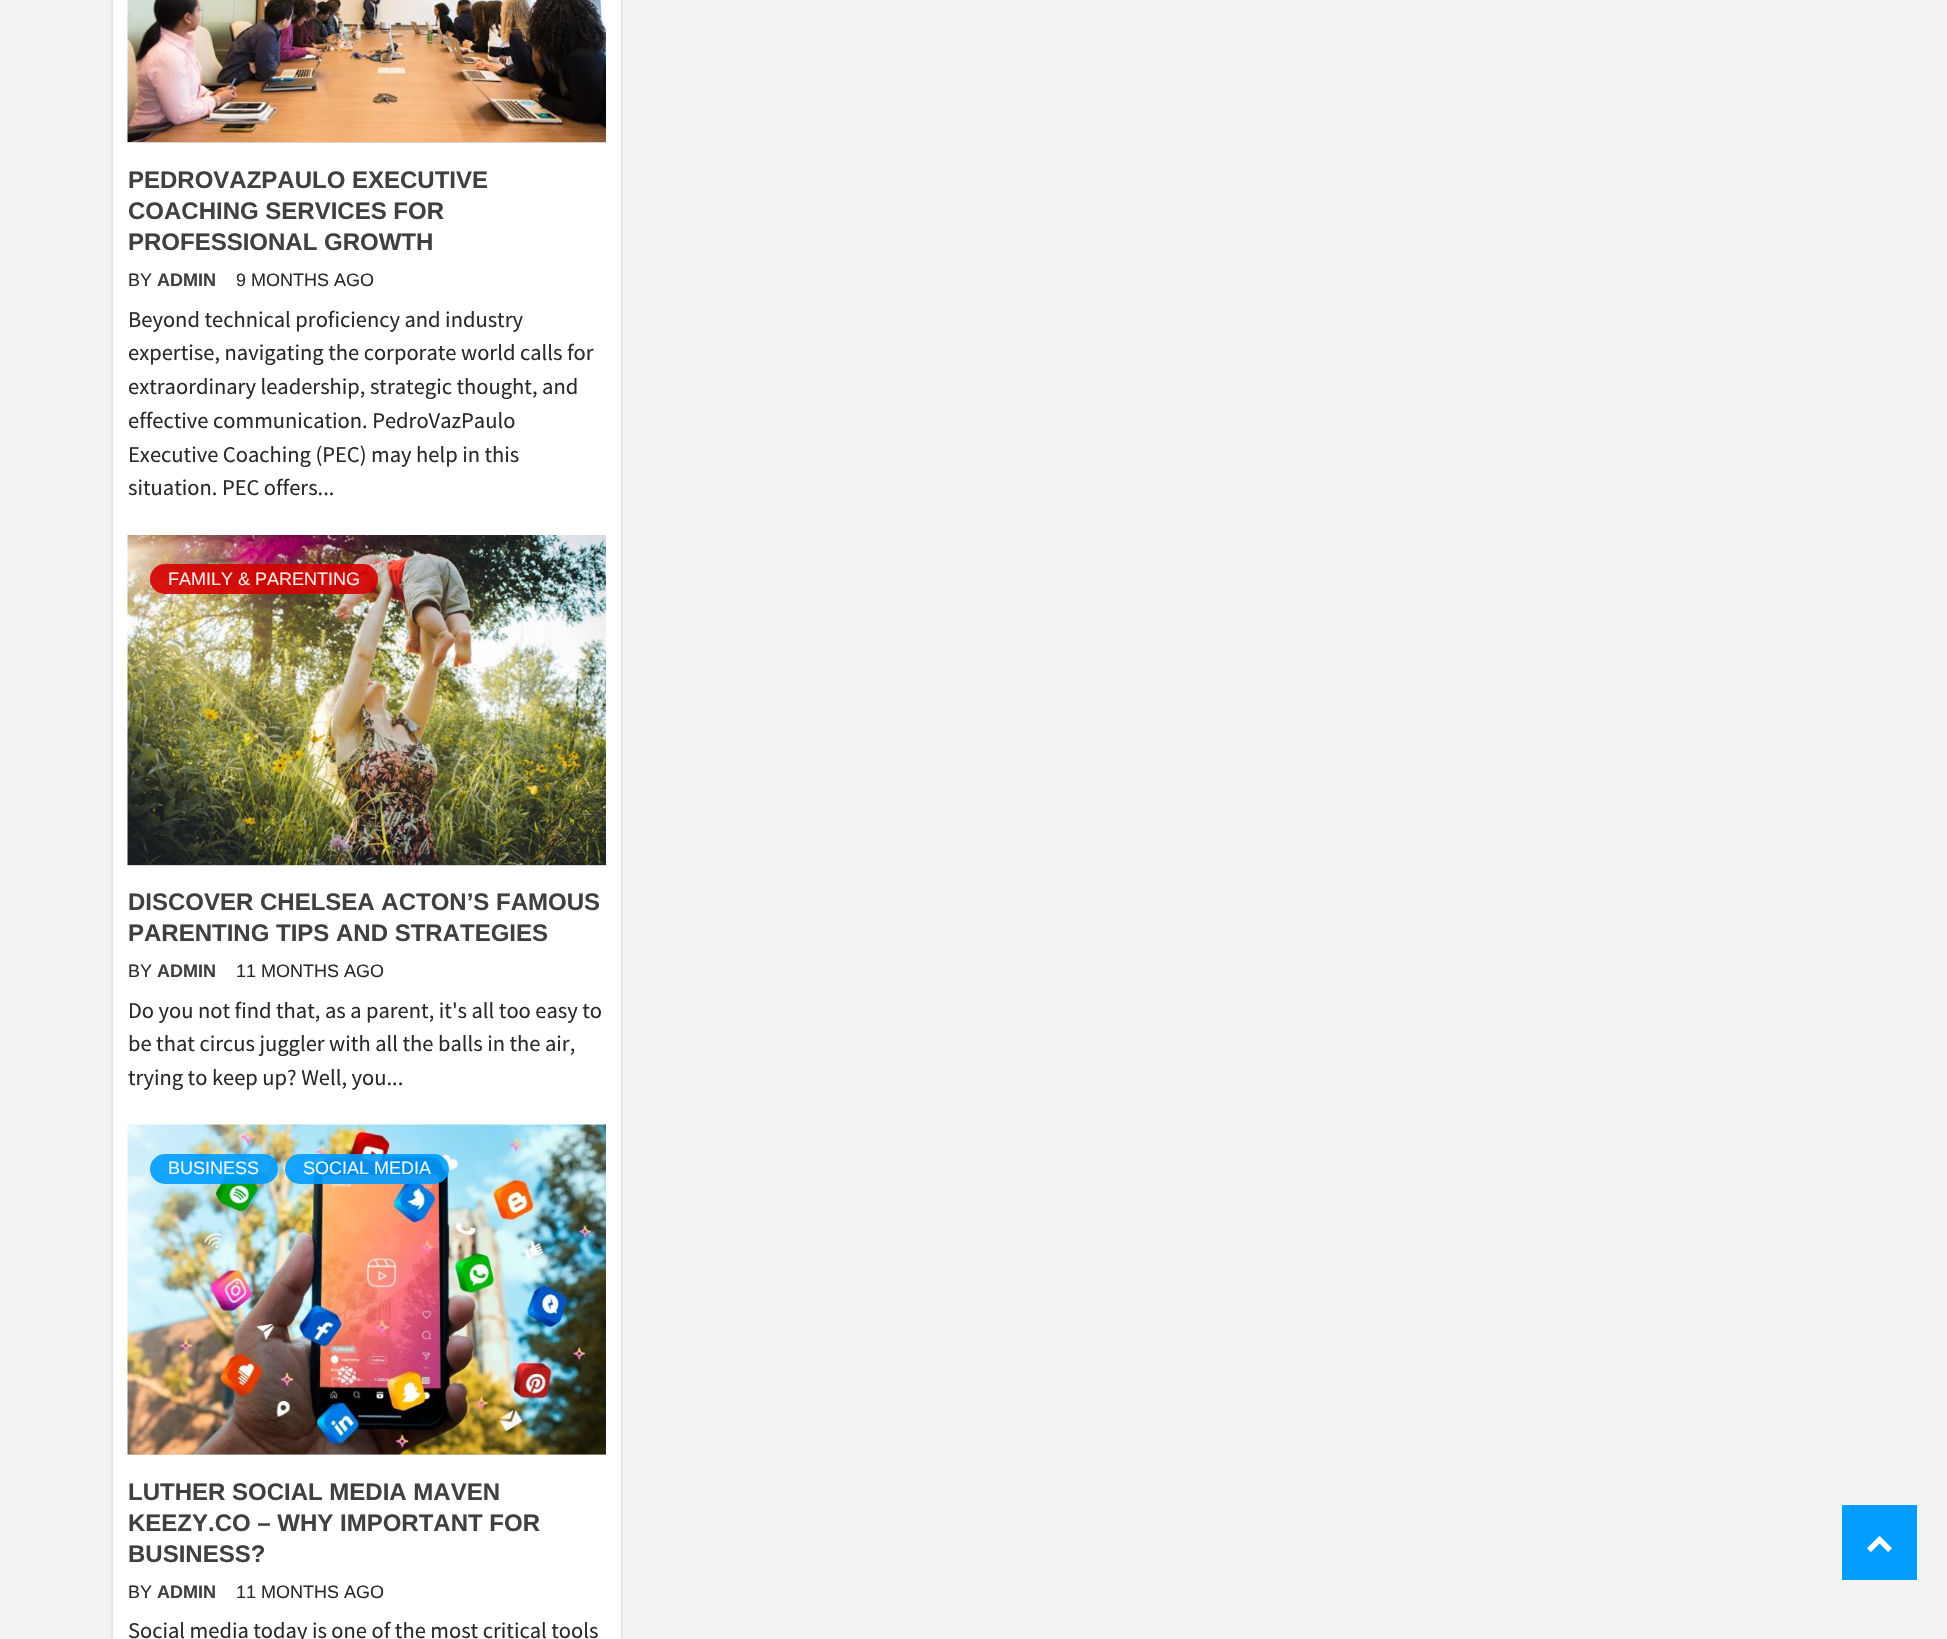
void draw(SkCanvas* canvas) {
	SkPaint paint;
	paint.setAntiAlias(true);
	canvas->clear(0xfff3f3f3);
	paint.setColor(0xffffffff);
	canvas->drawRect(SkRect::MakeXYWH(112, -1, 510, 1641), paint);
	paint.setStroke(true);
	paint.setStrokeWidth(2);
	paint.setColor(0xffe6e6e6);
	canvas->drawRect(SkRect::MakeXYWH(112, -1, 510, 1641), paint);
	paint.setStroke(false);
	paint.setColor(0xffd7d7d7);
	canvas->drawRect(SkRect::MakeXYWH(128, 142, 478, 1), paint);
	canvas->drawImageRect(SkImages::DeferredFromEncodedData(SkData::MakeFromFileName("img1.png")), SkRect::MakeXYWH(127, 0, 479, 142), SkSamplingOptions());
	SkFont f1(fontMgr->matchFamilyStyle("Liberation Sans", SkFontStyle::Bold()), 24);
	f1.setSubpixel(true);
	paint.setColor(0xff404040);
	canvas->drawString("PEDROVAZPAULO EXECUTIVE", 128, 188, f1, paint);
	canvas->drawString("COACHING SERVICES FOR", 128, 219, f1, paint);
	canvas->drawString("PROFESSIONAL GROWTH", 128, 250, f1, paint);
	SkFont f2(fontMgr->matchFamilyStyle("Liberation Sans", SkFontStyle::Normal()), 18);
	f2.setSubpixel(true);
	paint.setColor(0xff2a2a2a);
	canvas->drawString("BY", 128, 286, f2, paint);
	SkFont f3(fontMgr->matchFamilyStyle("Liberation Sans", SkFontStyle::Bold()), 18);
	f3.setSubpixel(true);
	paint.setColor(0xff404040);
	canvas->drawString("ADMIN", 157, 286, f3, paint);
	paint.setColor(0xff2a2a2a);
	canvas->drawString("9 MONTHS AGO", 236, 286, f2, paint);
	SkFont f4(fontMgr->matchFamilyStyle("Source Sans Pro", SkFontStyle::Normal()), 22.5);
	f4.setSubpixel(true);
	canvas->drawString("Beyond technical proficiency and industry", 128, 327, f4, paint);
	canvas->drawString("expertise, navigating the corporate world calls for", 128, 360, f4, paint);
	canvas->drawString("extraordinary leadership, strategic thought, and", 128, 394, f4, paint);
	canvas->drawString("effective communication. PedroVazPaulo", 128, 428, f4, paint);
	canvas->drawString("Executive Coaching (PEC) may help in this", 128, 462, f4, paint);
	canvas->drawString("situation. PEC offers...", 128, 495, f4, paint);
	paint.setColor(0xffd7d7d7);
	canvas->drawRect(SkRect::MakeXYWH(128, 865, 478, 1), paint);
	canvas->drawImageRect(SkImages::DeferredFromEncodedData(SkData::MakeFromFileName("img2.png")), SkRect::MakeXYWH(127, 535, 479, 330), SkSamplingOptions());
	paint.setColor(0xe6d60000);
	canvas->drawRoundRect(SkRect::MakeXYWH(150, 564, 228, 30), 15, 15, paint);
	paint.setColor(0xfffae7e6);
	canvas->drawString("FAMILY & PARENTING", 168, 585, f2, paint);
	paint.setColor(0xff404040);
	canvas->drawString("DISCOVER CHELSEA ACTON’S FAMOUS", 128, 910, f1, paint);
	canvas->drawString("PARENTING TIPS AND STRATEGIES", 128, 941, f1, paint);
	paint.setColor(0xff2a2a2a);
	canvas->drawString("BY", 128, 977, f2, paint);
	paint.setColor(0xff404040);
	canvas->drawString("ADMIN", 157, 977, f3, paint);
	paint.setColor(0xff2a2a2a);
	canvas->drawString("11 MONTHS AGO", 236, 977, f2, paint);
	canvas->drawString("Do you not find that, as a parent, it's all too easy to", 128, 1018, f4, paint);
	canvas->drawString("be that circus juggler with all the balls in the air,", 128, 1051, f4, paint);
	canvas->drawString("trying to keep up? Well, you...", 128, 1085, f4, paint);
	paint.setColor(0xffd7d7d7);
	canvas->drawRect(SkRect::MakeXYWH(128, 1454, 478, 1), paint);
	canvas->drawImageRect(SkImages::DeferredFromEncodedData(SkData::MakeFromFileName("img3.png")), SkRect::MakeXYWH(127, 1124, 479, 331), SkSamplingOptions());
	paint.setColor(0xe6009cff);
	canvas->drawRoundRect(SkRect::MakeXYWH(150, 1154, 128, 30), 15, 15, paint);
	paint.setColor(0xffe7f6fe);
	canvas->drawString("BUSINESS", 168, 1174, f2, paint);
	paint.setColor(0xe6009cff);
	canvas->drawRoundRect(SkRect::MakeXYWH(285, 1154, 164, 30), 15, 15, paint);
	paint.setColor(0xffe7f6fe);
	canvas->drawString("SOCIAL MEDIA", 303, 1174, f2, paint);
	paint.setColor(0xff404040);
	canvas->drawString("LUTHER SOCIAL MEDIA MAVEN", 128, 1500, f1, paint);
	canvas->drawString("KEEZY.CO – WHY IMPORTANT FOR", 128, 1531, f1, paint);
	canvas->drawString("BUSINESS?", 128, 1562, f1, paint);
	paint.setColor(0xff2a2a2a);
	canvas->drawString("BY", 128, 1598, f2, paint);
	paint.setColor(0xff404040);
	canvas->drawString("ADMIN", 157, 1598, f3, paint);
	paint.setColor(0xff2a2a2a);
	canvas->drawString("11 MONTHS AGO", 236, 1598, f2, paint);
	canvas->drawString("Social media today is one of the most critical tools", 128, 1638, f4, paint);
	paint.setColor(0xff009cff);
	canvas->drawRect(SkRect::MakeXYWH(1842, 1505, 75, 75), paint);
	canvas->drawImageRect(SkImages::DeferredFromEncodedData(SkData::MakeFromFileName("img4.png")), SkRect::MakeXYWH(1867, 1536, 25, 16), SkSamplingOptions());
}
